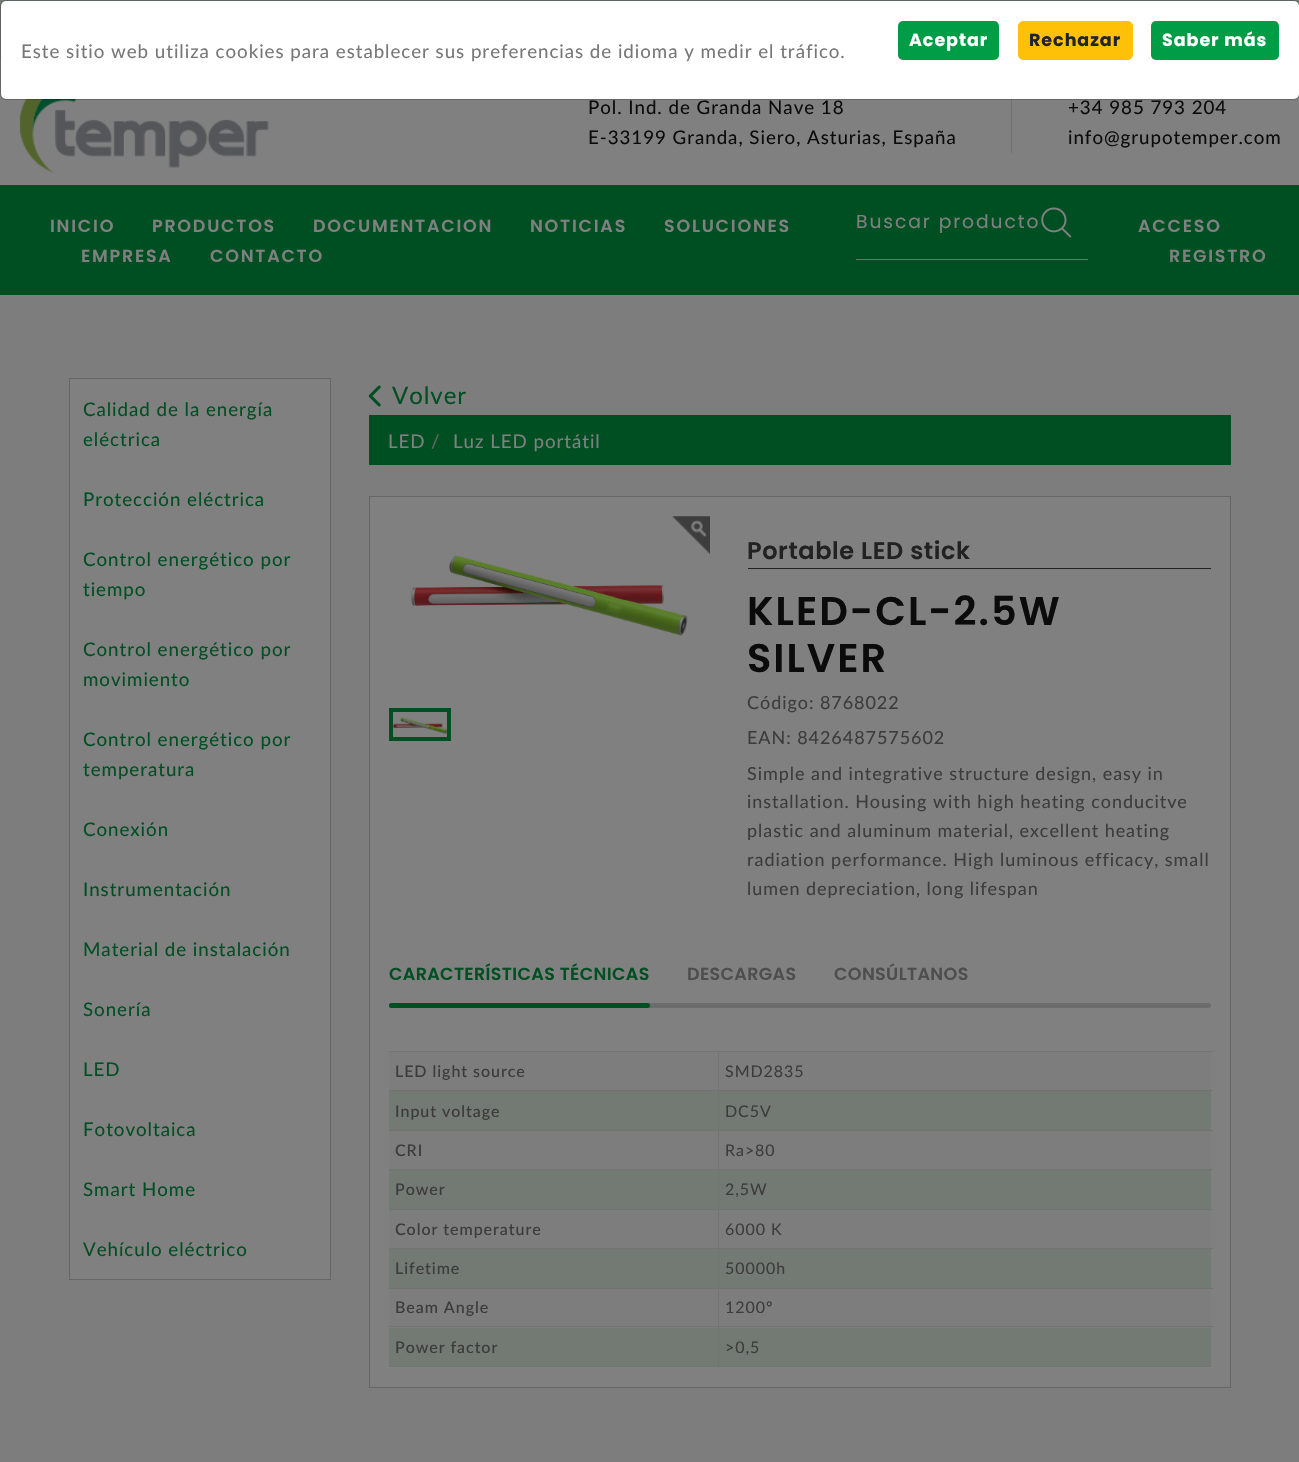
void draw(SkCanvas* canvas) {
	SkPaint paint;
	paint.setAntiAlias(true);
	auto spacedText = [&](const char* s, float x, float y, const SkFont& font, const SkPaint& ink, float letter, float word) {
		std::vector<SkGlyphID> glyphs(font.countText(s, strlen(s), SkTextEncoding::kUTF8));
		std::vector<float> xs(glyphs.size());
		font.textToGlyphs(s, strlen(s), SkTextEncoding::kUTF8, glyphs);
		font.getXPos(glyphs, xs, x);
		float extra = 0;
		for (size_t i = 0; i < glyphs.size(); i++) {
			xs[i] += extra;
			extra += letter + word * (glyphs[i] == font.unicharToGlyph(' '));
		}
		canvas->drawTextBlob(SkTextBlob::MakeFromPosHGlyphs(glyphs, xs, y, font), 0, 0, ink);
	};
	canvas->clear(0xff808080);
	paint.setColor(0xff747b74);
	canvas->drawRect(SkRect::MakeXYWH(0, 0, 1299, 60), paint);
	paint.setColor(0xff717171);
	canvas->drawRect(SkRect::MakeXYWH(1011, 93, 1, 60), paint);
	paint.setColor(0xffffffff);
	canvas->drawRoundRect(SkRect::MakeXYWH(1, 1, 1298, 98), 5, 5, paint);
	canvas->drawImageRect(SkImages::DeferredFromEncodedData(SkData::MakeFromFileName("img1.png")), SkRect::MakeXYWH(19, 99, 250, 74), SkSamplingOptions());
	paint.setStroke(true);
	paint.setStrokeWidth(1);
	paint.setColor(0x33000000);
	canvas->drawRoundRect(SkRect::MakeXYWH(0.5, 0.5, 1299, 99), 5.5, 5.5, paint);
	paint.setStroke(false);
	paint.setColor(0xff009d46);
	canvas->drawRoundRect(SkRect::MakeXYWH(898, 21, 101, 39), 5, 5, paint);
	SkFont f1(fontMgr->matchFamilyStyle("Poppins", SkFontStyle::Bold()), 17.5);
	f1.setSubpixel(true);
	paint.setColor(0xffffffff);
	spacedText("Aceptar", 909, 46, f1, paint, 0.95, 0);
	paint.setColor(0xffffc107);
	canvas->drawRoundRect(SkRect::MakeXYWH(1018.5, 21.5, 114, 38), 4.5, 4.5, paint);
	paint.setStroke(true);
	canvas->drawRoundRect(SkRect::MakeXYWH(1018.5, 21.5, 114, 38), 4.5, 4.5, paint);
	paint.setStroke(false);
	paint.setColor(0xff212529);
	spacedText("Rechazar", 1029, 46, f1, paint, 0.95, 0);
	paint.setColor(0xff009d46);
	canvas->drawRoundRect(SkRect::MakeXYWH(1151, 21, 128, 39), 5, 5, paint);
	paint.setColor(0xffffffff);
	spacedText("Saber más", 1162, 46, f1, paint, 0.95, 0);
	SkFont f2(fontMgr->matchFamilyStyle("Lato", SkFontStyle::Normal()), 18.75);
	f2.setSubpixel(true);
	paint.setColor(0xff777777);
	spacedText("Este sitio web utiliza cookies para establecer sus preferencias de idioma y medir el tráfico.", 21, 58, f2, paint, 0.95, 0);
	paint.setColor(0xff0b0b0b);
	spacedText("Pol. Ind. de Granda Nave 18", 588, 114, f2, paint, 0.95, 0);
	spacedText("E-33199 Granda, Siero, Asturias, España", 588, 144, f2, paint, 0.95, 0);
	spacedText("+34 985 793 204", 1068, 114, f2, paint, 0.95, 0);
	spacedText("info@grupotemper.com", 1068, 144, f2, paint, 0.95, 0);
	paint.setColor(0xff004f23);
	canvas->drawRect(SkRect::MakeXYWH(0, 185, 1299, 110), paint);
	SkFont f3(fontMgr->matchFamilyStyle("Poppins", SkFontStyle(600, SkFontStyle::kNormal_Width, SkFontStyle::kUpright_Slant)), 17.5);
	f3.setSubpixel(true);
	paint.setColor(0xff808080);
	spacedText("INICIO", 50, 232, f3, paint, 1.75, 0);
	spacedText("PRODUCTOS", 152, 232, f3, paint, 1.75, 0);
	spacedText("DOCUMENTACION", 313, 232, f3, paint, 1.75, 0);
	spacedText("NOTICIAS", 530, 232, f3, paint, 1.75, 0);
	spacedText("SOLUCIONES", 664, 232, f3, paint, 1.75, 0);
	spacedText("EMPRESA", 81, 262, f3, paint, 1.75, 0);
	spacedText("CONTACTO", 210, 262, f3, paint, 1.75, 0);
	SkFont f4(fontMgr->matchFamilyStyle("Poppins", SkFontStyle::Normal()), 18.75);
	f4.setSubpixel(true);
	spacedText("Buscar producto", 856, 228, f4, paint, 1.9, 0);
	canvas->drawImageRect(SkImages::DeferredFromEncodedData(SkData::MakeFromFileName("img2.png")), SkRect::MakeXYWH(1041, 207, 31, 31), SkSamplingOptions());
	paint.setColor(0xff717171);
	canvas->drawRect(SkRect::MakeXYWH(856, 259, 232, 1), paint);
	paint.setColor(0xff808080);
	spacedText("ACCESO", 1138, 232, f3, paint, 1.75, 0);
	spacedText("REGISTRO", 1169, 262, f3, paint, 1.75, 0);
	paint.setColor(0xff7d7d7d);
	canvas->drawRect(SkRect::MakeXYWH(0, 295, 1299, 1167), paint);
	paint.setStroke(true);
	paint.setColor(0xff666666);
	canvas->drawRect(SkRect::MakeXYWH(69.5, 378.5, 261, 901), paint);
	paint.setStroke(false);
	paint.setColor(0xff808080);
	canvas->drawRect(SkRect::MakeXYWH(70, 379, 260, 900), paint);
	paint.setColor(0xff004f23);
	spacedText("Calidad de la energía", 83, 416, f2, paint, 0.95, 0);
	spacedText("eléctrica", 83, 446, f2, paint, 0.95, 0);
	spacedText("Protección eléctrica", 83, 506, f2, paint, 0.95, 0);
	spacedText("Control energético por", 83, 566, f2, paint, 0.95, 0);
	spacedText("tiempo", 83, 596, f2, paint, 0.95, 0);
	spacedText("Control energético por", 83, 656, f2, paint, 0.95, 0);
	spacedText("movimiento", 83, 686, f2, paint, 0.95, 0);
	spacedText("Control energético por", 83, 746, f2, paint, 0.95, 0);
	spacedText("temperatura", 83, 776, f2, paint, 0.95, 0);
	spacedText("Conexión", 83, 836, f2, paint, 0.95, 0);
	spacedText("Instrumentación", 83, 896, f2, paint, 0.95, 0);
	spacedText("Material de instalación", 83, 956, f2, paint, 0.95, 0);
	spacedText("Sonería", 83, 1016, f2, paint, 0.95, 0);
	spacedText("LED", 83, 1076, f2, paint, 0.95, 0);
	spacedText("Fotovoltaica", 83, 1136, f2, paint, 0.95, 0);
	spacedText("Smart Home", 83, 1196, f2, paint, 0.95, 0);
	spacedText("Vehículo eléctrico", 83, 1256, f2, paint, 0.95, 0);
	canvas->drawImageRect(SkImages::DeferredFromEncodedData(SkData::MakeFromFileName("img3.png")), SkRect::MakeXYWH(368, 385, 13, 22), SkSamplingOptions());
	SkFont f5(fontMgr->matchFamilyStyle("Lato", SkFontStyle::Normal()), 24);
	f5.setSubpixel(true);
	spacedText("Volver", 392, 404, f5, paint, 0.95, 0);
	canvas->drawRect(SkRect::MakeXYWH(369, 415, 862, 50), paint);
	paint.setColor(0xff808080);
	spacedText("LED", 388, 448, f2, paint, 0.95, 0);
	paint.setColor(0xff666666);
	spacedText("/", 431, 448, f2, paint, 0.95, 0);
	paint.setColor(0xff808080);
	spacedText("Luz LED portátil", 453, 448, f2, paint, 0.95, 0);
	canvas->drawRect(SkRect::MakeXYWH(369.5, 496.5, 861, 891), paint);
	paint.setStroke(true);
	paint.setColor(0xff666666);
	canvas->drawRect(SkRect::MakeXYWH(369.5, 496.5, 861, 891), paint);
	canvas->drawImageRect(SkImages::DeferredFromEncodedData(SkData::MakeFromFileName("img4.png")), SkRect::MakeXYWH(672, 516, 38, 38), SkSamplingOptions());
	canvas->drawImageRect(SkImages::DeferredFromEncodedData(SkData::MakeFromFileName("img5.png")), SkRect::MakeXYWH(411, 555, 277, 81), SkSamplingOptions());
	canvas->drawImageRect(SkImages::DeferredFromEncodedData(SkData::MakeFromFileName("img6.png")), SkRect::MakeXYWH(393, 717, 54, 17), SkSamplingOptions());
	paint.setStrokeWidth(4);
	paint.setColor(0xff004f23);
	canvas->drawRect(SkRect::MakeXYWH(391, 710, 58, 29), paint);
	paint.setStroke(false);
	paint.setColor(0xff222222);
	canvas->drawRect(SkRect::MakeXYWH(748, 568, 463, 1), paint);
	SkFont f6(fontMgr->matchFamilyStyle("Poppins", SkFontStyle(600, SkFontStyle::kNormal_Width, SkFontStyle::kUpright_Slant)), 24);
	f6.setSubpixel(true);
	spacedText("Portable LED stick", 747, 559, f6, paint, 0.6, 0);
	SkFont f7(fontMgr->matchFamilyStyle("Poppins", SkFontStyle(600, SkFontStyle::kNormal_Width, SkFontStyle::kUpright_Slant)), 40);
	f7.setSubpixel(true);
	paint.setColor(0xff0b0b0b);
	spacedText("KLED-CL-2.5W", 747, 625, f7, paint, 2, 0);
	spacedText("SILVER", 747, 672, f7, paint, 2, 0);
	SkFont f8(fontMgr->matchFamilyStyle("Lato", SkFontStyle::Normal()), 18);
	f8.setSubpixel(true);
	paint.setColor(0xff3c3c3c);
	spacedText("Código: 8768022", 747, 709, f8, paint, 0.95, 0);
	spacedText("EAN: 8426487575602", 747, 744, f8, paint, 0.95, 0);
	spacedText("Simple and integrative structure design, easy in", 747, 780, f8, paint, 0.95, 0);
	spacedText("installation. Housing with high heating conducitve", 747, 808, f8, paint, 0.95, 0);
	spacedText("plastic and aluminum material, excellent heating", 747, 837, f8, paint, 0.95, 0);
	spacedText("radiation performance. High luminous efficacy, small", 747, 866, f8, paint, 0.95, 0);
	spacedText("lumen depreciation, long lifespan", 747, 895, f8, paint, 0.95, 0);
	paint.setColor(0xff004f23);
	spacedText("CARACTERÍSTICAS TÉCNICAS", 389, 980, f3, paint, 0.35, 0);
	paint.setColor(0xff6c6c6c);
	canvas->drawRoundRect(SkRect::MakeXYWH(389, 1003, 822, 5), 2.5, 2.5, paint);
	paint.setColor(0xff004f23);
	canvas->drawRoundRect(SkRect::MakeXYWH(389, 1003, 261, 5), 2.5, 2.5, paint);
	paint.setColor(0xff4e4e4e);
	spacedText("DESCARGAS", 687, 980, f3, paint, 0.35, 0);
	spacedText("CONSÚLTANOS", 834, 980, f3, paint, 0.35, 0);
	paint.setColor(0xff737373);
	canvas->drawRect(SkRect::MakeXYWH(389, 1366, 822, 1), paint);
	paint.setColor(0xff7d7d7d);
	canvas->drawRect(SkRect::MakeXYWH(389, 1052, 822, 38), paint);
	paint.setColor(0xff737373);
	canvas->drawRect(SkRect::MakeXYWH(389, 1051, 824, 1), paint);
	SkFont f9(fontMgr->matchFamilyStyle("Lato", SkFontStyle(500, SkFontStyle::kNormal_Width, SkFontStyle::kUpright_Slant)), 16);
	f9.setSubpixel(true);
	paint.setColor(0xff3c3c3c);
	spacedText("LED light source", 395, 1077, f9, paint, 0.95, 0);
	SkFont f10(fontMgr->matchFamilyStyle("Lato", SkFontStyle::Normal()), 16);
	f10.setSubpixel(true);
	spacedText("SMD2835", 725, 1077, f10, paint, 0.95, 0);
	paint.setColor(0xff737973);
	canvas->drawRect(SkRect::MakeXYWH(389, 1091, 822, 39), paint);
	paint.setColor(0xff737373);
	canvas->drawRect(SkRect::MakeXYWH(389, 1090, 824, 1), paint);
	paint.setColor(0xff3c3c3c);
	spacedText("Input voltage", 395, 1117, f9, paint, 0.95, 0);
	spacedText("DC5V", 725, 1117, f10, paint, 0.95, 0);
	paint.setColor(0xff7d7d7d);
	canvas->drawRect(SkRect::MakeXYWH(389, 1131, 822, 38), paint);
	paint.setColor(0xff737373);
	canvas->drawRect(SkRect::MakeXYWH(389, 1130, 824, 1), paint);
	paint.setColor(0xff3c3c3c);
	spacedText("CRI", 395, 1156, f9, paint, 0.95, 0);
	spacedText("Ra>80", 725, 1156, f10, paint, 0.95, 0);
	paint.setColor(0xff737973);
	canvas->drawRect(SkRect::MakeXYWH(389, 1170, 822, 39), paint);
	paint.setColor(0xff737373);
	canvas->drawRect(SkRect::MakeXYWH(389, 1169, 824, 1), paint);
	paint.setColor(0xff3c3c3c);
	spacedText("Power", 395, 1195, f9, paint, 0.95, 0);
	spacedText("2,5W", 725, 1195, f10, paint, 0.95, 0);
	paint.setColor(0xff7d7d7d);
	canvas->drawRect(SkRect::MakeXYWH(389, 1210, 822, 38), paint);
	paint.setColor(0xff737373);
	canvas->drawRect(SkRect::MakeXYWH(389, 1209, 824, 1), paint);
	paint.setColor(0xff3c3c3c);
	spacedText("Color temperature", 395, 1235, f9, paint, 0.95, 0);
	spacedText("6000 K", 725, 1235, f10, paint, 0.95, 0);
	paint.setColor(0xff737973);
	canvas->drawRect(SkRect::MakeXYWH(389, 1249, 822, 39), paint);
	paint.setColor(0xff737373);
	canvas->drawRect(SkRect::MakeXYWH(389, 1248, 824, 1), paint);
	paint.setColor(0xff3c3c3c);
	spacedText("Lifetime", 395, 1274, f9, paint, 0.95, 0);
	spacedText("50000h", 725, 1274, f10, paint, 0.95, 0);
	paint.setColor(0xff7d7d7d);
	canvas->drawRect(SkRect::MakeXYWH(389, 1289, 822, 39), paint);
	paint.setColor(0xff737373);
	canvas->drawRect(SkRect::MakeXYWH(389, 1288, 824, 1), paint);
	paint.setColor(0xff3c3c3c);
	spacedText("Beam Angle", 395, 1313, f9, paint, 0.95, 0);
	spacedText("1200º", 725, 1313, f10, paint, 0.95, 0);
	paint.setColor(0xff737973);
	canvas->drawRect(SkRect::MakeXYWH(389, 1328, 822, 38), paint);
	paint.setColor(0xff737373);
	canvas->drawRect(SkRect::MakeXYWH(389, 1326, 824, 1), paint);
	canvas->drawRect(SkRect::MakeXYWH(718, 1051, 1, 317), paint);
	paint.setColor(0xff3c3c3c);
	spacedText("Power factor", 395, 1353, f9, paint, 0.95, 0);
	spacedText(">0,5", 725, 1353, f10, paint, 0.95, 0);
}
